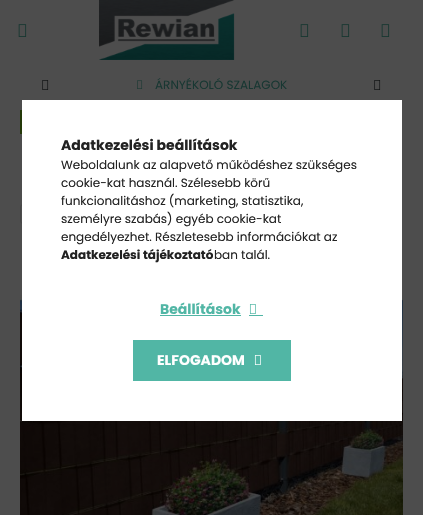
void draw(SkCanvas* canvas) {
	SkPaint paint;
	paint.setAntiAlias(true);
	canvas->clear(0xff4d4d4d);
	canvas->drawImageRect(SkImages::DeferredFromEncodedData(SkData::MakeFromFileName("img1.png")), SkRect::MakeXYWH(18, 24, 9, 13), SkSamplingOptions());
	canvas->drawImageRect(SkImages::DeferredFromEncodedData(SkData::MakeFromFileName("img2.png")), SkRect::MakeXYWH(99, 0, 136, 60), SkSamplingOptions());
	canvas->drawImageRect(SkImages::DeferredFromEncodedData(SkData::MakeFromFileName("img1.png")), SkRect::MakeXYWH(300, 24, 9, 13), SkSamplingOptions());
	canvas->drawImageRect(SkImages::DeferredFromEncodedData(SkData::MakeFromFileName("img1.png")), SkRect::MakeXYWH(341, 24, 9, 13), SkSamplingOptions());
	canvas->drawImageRect(SkImages::DeferredFromEncodedData(SkData::MakeFromFileName("img1.png")), SkRect::MakeXYWH(381, 24, 9, 13), SkSamplingOptions());
	canvas->drawImageRect(SkImages::DeferredFromEncodedData(SkData::MakeFromFileName("img3.png")), SkRect::MakeXYWH(42, 80, 7, 10), SkSamplingOptions());
	canvas->drawImageRect(SkImages::DeferredFromEncodedData(SkData::MakeFromFileName("img4.png")), SkRect::MakeXYWH(137, 80, 6, 9), SkSamplingOptions());
	SkFont f1(fontMgr->matchFamilyStyle("Poppins", SkFontStyle::Normal()), 12);
	f1.setSubpixel(true);
	paint.setColor(0xff183732);
	canvas->drawString("ÁRNYÉKOLÓ SZALAGOK", 155, 89, f1, paint);
	canvas->drawImageRect(SkImages::DeferredFromEncodedData(SkData::MakeFromFileName("img3.png")), SkRect::MakeXYWH(374, 80, 7, 10), SkSamplingOptions());
	paint.setColor(0xff243909);
	canvas->drawRect(SkRect::MakeXYWH(20, 110, 2, 24), paint);
	paint.setStroke(true);
	paint.setStrokeWidth(1);
	paint.setColor(0xff464646);
	canvas->drawRoundRect(SkRect::MakeXYWH(20.5, 204.5, 29, 19), 2.5, 2.5, paint);
	canvas->drawImageRect(SkImages::DeferredFromEncodedData(SkData::MakeFromFileName("img5.png")), SkRect::MakeXYWH(20, 295, 383, 220), SkSamplingOptions());
	paint.setStroke(false);
	paint.setColor(0xffffffff);
	canvas->drawRect(SkRect::MakeXYWH(22, 100, 380, 321), paint);
	SkFont f2(fontMgr->matchFamilyStyle("Poppins", SkFontStyle::Bold()), 14);
	f2.setSubpixel(true);
	paint.setColor(0xff222222);
	canvas->drawString("Adatkezelési beállítások", 61, 150, f2, paint);
	canvas->drawString("Weboldalunk az alapvető működéshez szükséges", 61, 169, f1, paint);
	canvas->drawString("cookie-kat használ. Szélesebb körű", 61, 187, f1, paint);
	canvas->drawString("funkcionalitáshoz (marketing, statisztika,", 61, 205, f1, paint);
	canvas->drawString("személyre szabás) egyéb cookie-kat", 61, 223, f1, paint);
	canvas->drawString("engedélyezhet. Részletesebb információkat az", 61, 241, f1, paint);
	SkFont f3(fontMgr->matchFamilyStyle("Poppins", SkFontStyle::Bold()), 12);
	f3.setSubpixel(true);
	canvas->drawString("Adatkezelési tájékoztató", 61, 259, f3, paint);
	canvas->drawString("ban talál.", 214, 259, f1, paint);
	paint.setColor(0xff51b6a5);
	canvas->drawString("Beállítások", 160, 314, f2, paint);
	canvas->drawRect(SkRect::MakeXYWH(160, 315, 81, 1), paint);
	canvas->drawImageRect(SkImages::DeferredFromEncodedData(SkData::MakeFromFileName("img6.png")), SkRect::MakeXYWH(249, 304, 7, 10), SkSamplingOptions());
	canvas->drawRect(SkRect::MakeXYWH(249, 315, 14, 1), paint);
	canvas->drawRect(SkRect::MakeXYWH(133, 340, 158, 41), paint);
	paint.setColor(0xffffffff);
	canvas->drawString("ELFOGADOM", 157, 365, f2, paint);
	canvas->drawImageRect(SkImages::DeferredFromEncodedData(SkData::MakeFromFileName("img7.png")), SkRect::MakeXYWH(254, 355, 7, 10), SkSamplingOptions());
}
